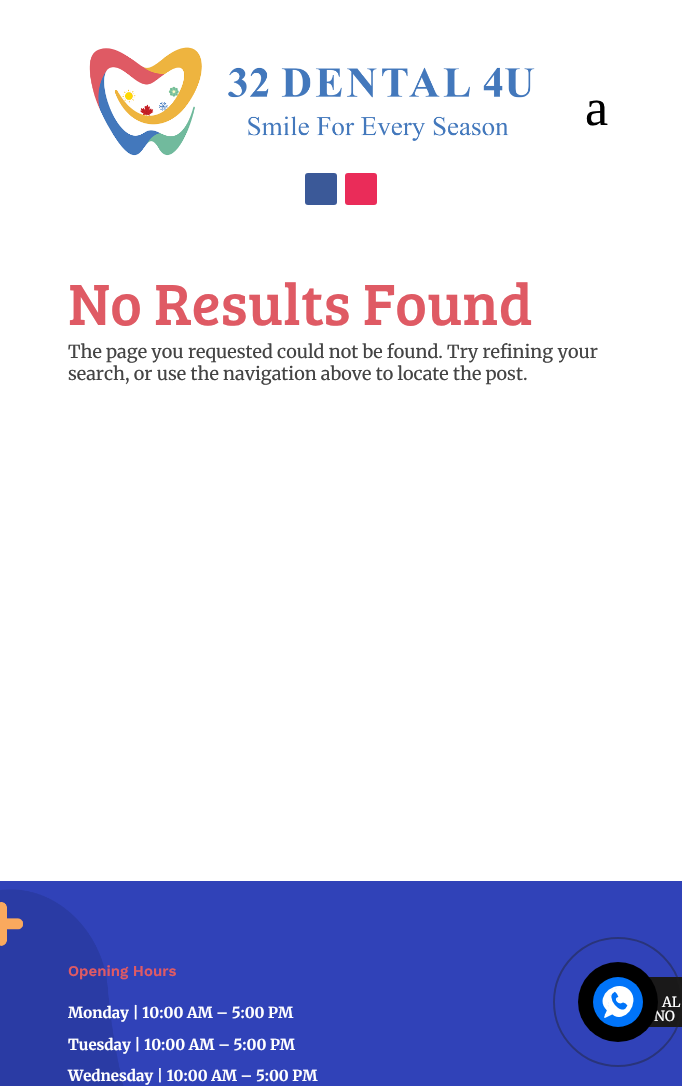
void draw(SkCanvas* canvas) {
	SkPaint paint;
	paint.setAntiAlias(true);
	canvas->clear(0xffffffff);
	canvas->drawImageRect(SkImages::DeferredFromEncodedData(SkData::MakeFromFileName("img1.png")), SkRect::MakeXYWH(89, 47, 446, 109), SkSamplingOptions());
	SkFont f1(fontMgr->matchFamilyStyle("Liberation Serif", SkFontStyle::Normal()), 52);
	f1.setSubpixel(true);
	paint.setColor(0xff000000);
	canvas->drawString("a", 585, 125, f1, paint);
	paint.setColor(0xff3b5998);
	canvas->drawRoundRect(SkRect::MakeXYWH(305, 173, 32, 32), 3, 3, paint);
	paint.setColor(0xffea2c59);
	canvas->drawRoundRect(SkRect::MakeXYWH(345, 173, 32, 32), 3, 3, paint);
	SkFont f2(fontMgr->matchFamilyStyle("Bree Serif", SkFontStyle::Normal()), 60);
	f2.setSubpixel(true);
	paint.setColor(0xffdf5a64);
	canvas->drawString("No Results Found", 68, 325, f2, paint);
	SkFont f3(fontMgr->matchFamilyStyle("Merriweather", SkFontStyle(300, SkFontStyle::kNormal_Width, SkFontStyle::kUpright_Slant)), 18);
	f3.setSubpixel(true);
	paint.setColor(0xff444444);
	canvas->drawString("The page you requested could not be found. Try refining your", 68, 358, f3, paint);
	canvas->drawString("search, or use the navigation above to locate the post.", 68, 380, f3, paint);
	paint.setColor(0xff3042b8);
	canvas->drawRect(SkRect::MakeXYWH(0, 881, 682, 205), paint);
	canvas->drawImageRect(SkImages::DeferredFromEncodedData(SkData::MakeFromFileName("img2.png")), SkRect::MakeXYWH(0, 889, 124, 197), SkSamplingOptions());
	SkFont f4(fontMgr->matchFamilyStyle("Work Sans", SkFontStyle(600, SkFontStyle::kNormal_Width, SkFontStyle::kUpright_Slant)), 15);
	f4.setSubpixel(true);
	paint.setColor(0xffdf5a64);
	canvas->drawString("Opening Hours", 68, 976, f4, paint);
	SkFont f5(fontMgr->matchFamilyStyle("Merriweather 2", SkFontStyle(300, SkFontStyle::kNormal_Width, SkFontStyle::kUpright_Slant)), 15);
	f5.setSubpixel(true);
	paint.setColor(0xffffffff);
	canvas->drawString("Monday | 10:00 AM – 5:00 PM", 68, 1018, f5, paint);
	canvas->drawString("Tuesday | 10:00 AM – 5:00 PM", 68, 1050, f5, paint);
	canvas->drawString("Wednesday | 10:00 AM – 5:00 PM", 68, 1081, f5, paint);
	paint.setColor(0xff1a1919);
	canvas->drawRoundRect(SkRect::MakeXYWH(593, 977, 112, 50), 25, 25, paint);
	SkFont f6(fontMgr->matchFamilyStyle("Merriweather", SkFontStyle(300, SkFontStyle::kNormal_Width, SkFontStyle::kUpright_Slant)), 14);
	f6.setSubpixel(true);
	paint.setColor(0xffffffff);
	canvas->drawString("AL", 662, 1007, f6, paint);
	canvas->drawString("NO", 654, 1021, f6, paint);
	paint.setStroke(true);
	paint.setStrokeWidth(2);
	paint.setColor(0x661e1e1e);
	canvas->drawCircle(618, 1002, 64, paint);
	paint.setStroke(false);
	paint.setColor(0xff000000);
	canvas->drawCircle(618, 1002, 40, paint);
	paint.setColor(0xff0074f9);
	canvas->drawCircle(618, 1002, 25, paint);
	canvas->drawImageRect(SkImages::DeferredFromEncodedData(SkData::MakeFromFileName("img3.png")), SkRect::MakeXYWH(602, 986, 32, 32), SkSamplingOptions());
}
